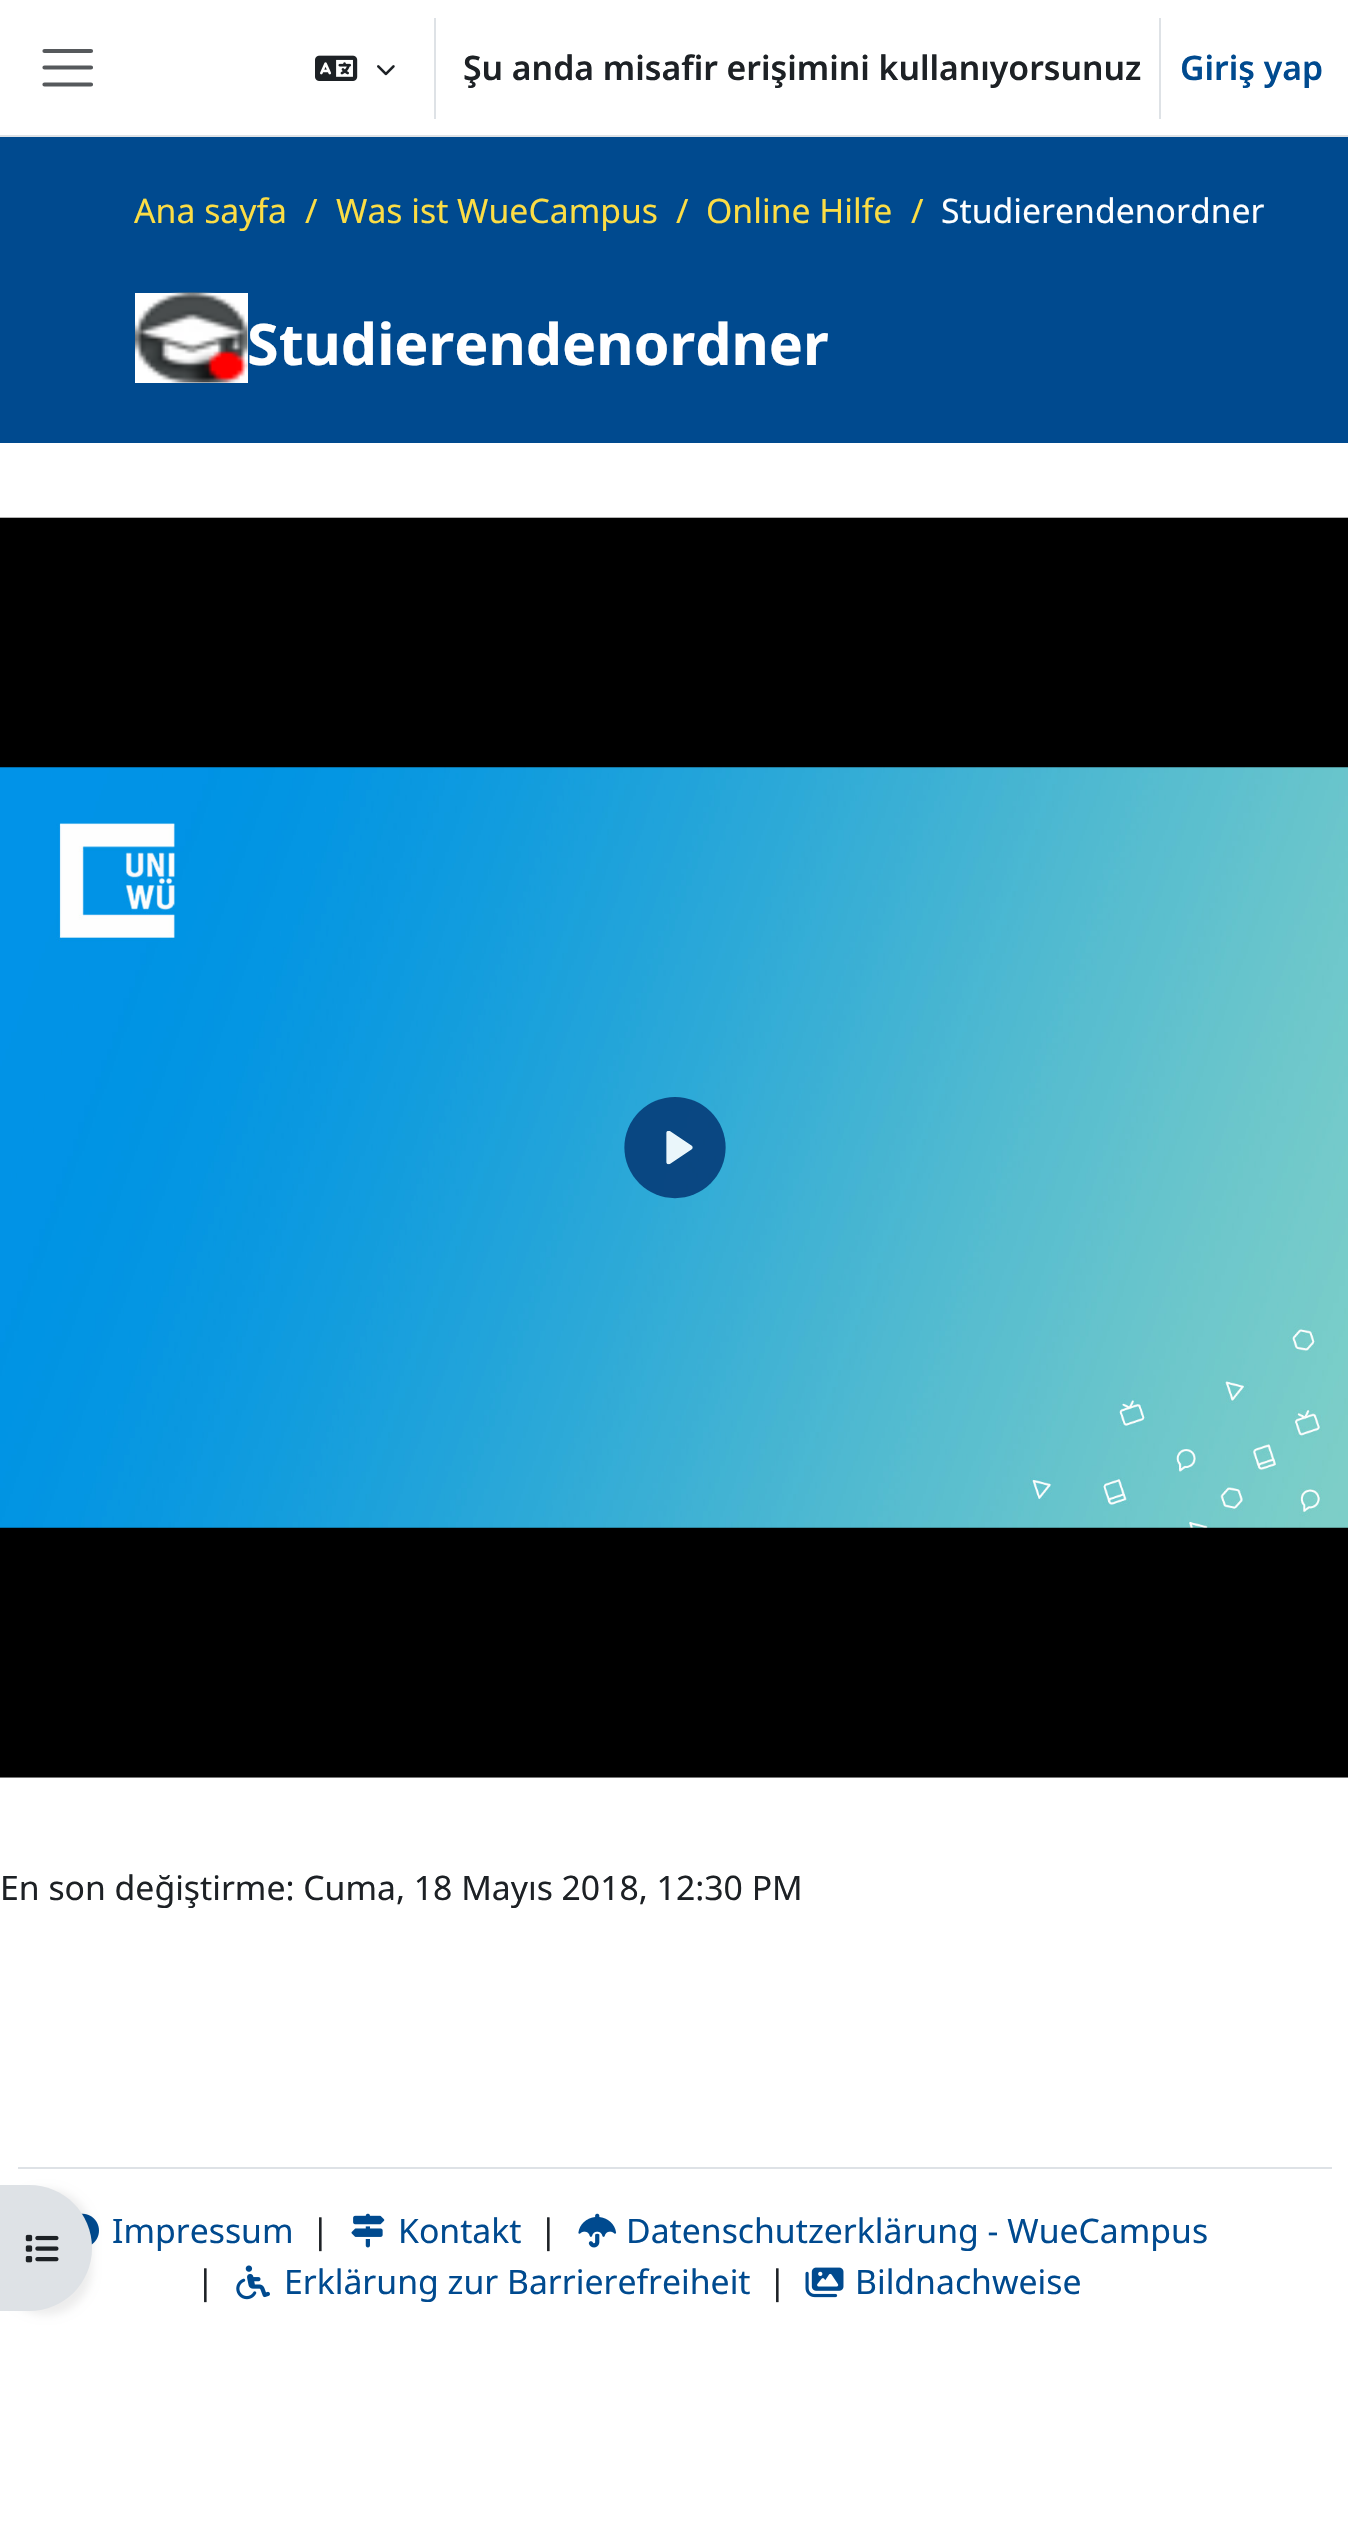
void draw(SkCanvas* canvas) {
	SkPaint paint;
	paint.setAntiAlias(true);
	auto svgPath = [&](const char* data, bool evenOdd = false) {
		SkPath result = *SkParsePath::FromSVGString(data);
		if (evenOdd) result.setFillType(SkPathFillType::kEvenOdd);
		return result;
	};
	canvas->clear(0xffffffff);
	paint.setColor(0xffdee2e6);
	canvas->drawRect(SkRect::MakeXYWH(0, 135, 1348, 2), paint);
	paint.setStroke(true);
	paint.setStrokeWidth(4.2);
	paint.setStrokeCap(SkPaint::kRound_Cap);
	paint.setColor(0xff56595c);
	canvas->drawPath(svgPath("M44.5 51H91M44.5 67.5H91M44.5 84.5H91"), paint);
	canvas->drawImageRect(SkImages::DeferredFromEncodedData(SkData::MakeFromFileName("img1.png")), SkRect::MakeXYWH(315, 55, 43, 26), SkSamplingOptions());
	canvas->drawImageRect(SkImages::DeferredFromEncodedData(SkData::MakeFromFileName("img2.png")), SkRect::MakeXYWH(377, 65, 18, 11), SkSamplingOptions());
	paint.setStroke(false);
	paint.setColor(0xffdee2e6);
	canvas->drawRect(SkRect::MakeXYWH(434, 18, 2, 101), paint);
	SkFont f1(fontMgr->matchFamilyStyle("Noto Sans", SkFontStyle(600, SkFontStyle::kNormal_Width, SkFontStyle::kUpright_Slant)), 33.75);
	f1.setSubpixel(true);
	paint.setColor(0xff1d2125);
	canvas->drawString("Şu anda misafir erişimini kullanıyorsunuz", 463, 80, f1, paint);
	paint.setColor(0xffdee2e6);
	canvas->drawRect(SkRect::MakeXYWH(1159, 18, 2, 101), paint);
	paint.setColor(0xff004a8f);
	canvas->drawString("Giriş yap", 1180, 80, f1, paint);
	canvas->drawRect(SkRect::MakeXYWH(0, 137, 1348, 306), paint);
	SkFont f2(fontMgr->matchFamilyStyle("Noto Sans", SkFontStyle::Normal()), 33.75);
	f2.setSubpixel(true);
	paint.setColor(0xfffcdd45);
	canvas->drawString("Ana sayfa", 134, 223, f2, paint);
	canvas->drawString("/", 305, 223, f2, paint);
	canvas->drawString("Was ist WueCampus", 336, 223, f2, paint);
	canvas->drawString("/", 676, 223, f2, paint);
	canvas->drawString("Online Hilfe", 706, 223, f2, paint);
	canvas->drawString("/", 911, 223, f2, paint);
	paint.setColor(0xffffffff);
	canvas->drawString("Studierendenordner", 941, 223, f2, paint);
	canvas->drawRect(SkRect::MakeXYWH(135, 293, 113, 90), paint);
	canvas->drawImageRect(SkImages::DeferredFromEncodedData(SkData::MakeFromFileName("img3.png")), SkRect::MakeXYWH(135, 292, 113, 91), SkSamplingOptions());
	SkFont f3(fontMgr->matchFamilyStyle("Noto Sans", SkFontStyle::Bold()), 57.4);
	f3.setSubpixel(true);
	canvas->drawString("Studierendenordner", 247, 365, f3, paint);
	canvas->drawImageRect(SkImages::DeferredFromEncodedData(SkData::MakeFromFileName("img4.png")), SkRect::MakeXYWH(0, 517, 1348, 1261), SkSamplingOptions());
	paint.setColor(0xff1d2125);
	canvas->drawString("En son değiştirme: Cuma, 18 Mayıs 2018, 12:30 PM", 0, 1900, f2, paint);
	canvas->drawImageRect(SkImages::DeferredFromEncodedData(SkData::MakeFromFileName("img6.png")), SkRect::MakeXYWH(81, 2213, 18, 32), SkSamplingOptions());
	paint.setColor(0x12000000);
	paint.setMaskFilter(SkMaskFilter::MakeBlur(kNormal_SkBlurStyle, 4.5));
	canvas->drawRoundRect(SkRect::MakeXYWH(0, 2189, 92, 126), 63, 63, paint);
	paint.setMaskFilter(nullptr);
	paint.setColor(0xffdee2e6);
	canvas->drawPath(svgPath("M0 2185H29C64 2185 92 2213 92 2248C92 2283 64 2311 29 2311H0Z"), paint);
	canvas->drawImageRect(SkImages::DeferredFromEncodedData(SkData::MakeFromFileName("img5.png")), SkRect::MakeXYWH(25, 2234, 34, 29), SkSamplingOptions());
	canvas->drawRect(SkRect::MakeXYWH(18, 2167, 1314, 2), paint);
	paint.setColor(0xff004a8f);
	canvas->drawString("Impressum", 112, 2243, f2, paint);
	paint.setColor(0xff1d2125);
	canvas->drawString("|", 311, 2243, f2, paint);
	canvas->drawImageRect(SkImages::DeferredFromEncodedData(SkData::MakeFromFileName("img7.png")), SkRect::MakeXYWH(351, 2213, 34, 35), SkSamplingOptions());
	paint.setColor(0xff004a8f);
	canvas->drawString("Kontakt", 398, 2243, f2, paint);
	paint.setColor(0xff1d2125);
	canvas->drawString("|", 539, 2243, f2, paint);
	canvas->drawImageRect(SkImages::DeferredFromEncodedData(SkData::MakeFromFileName("img8.png")), SkRect::MakeXYWH(578, 2213, 39, 35), SkSamplingOptions());
	paint.setColor(0xff004a8f);
	canvas->drawString("Datenschutzerklärung - WueCampus", 626, 2243, f2, paint);
	paint.setColor(0xff1d2125);
	canvas->drawString("|", 196, 2294, f2, paint);
	canvas->drawImageRect(SkImages::DeferredFromEncodedData(SkData::MakeFromFileName("img9.png")), SkRect::MakeXYWH(236, 2265, 34, 35), SkSamplingOptions());
	paint.setColor(0xff004a8f);
	canvas->drawString("Erklärung zur Barrierefreiheit", 284, 2294, f2, paint);
	paint.setColor(0xff1d2125);
	canvas->drawString("|", 768, 2294, f2, paint);
	canvas->drawImageRect(SkImages::DeferredFromEncodedData(SkData::MakeFromFileName("img10.png")), SkRect::MakeXYWH(805, 2267, 39, 31), SkSamplingOptions());
	paint.setColor(0xff004a8f);
	canvas->drawString("Bildnachweise", 855, 2294, f2, paint);
}
